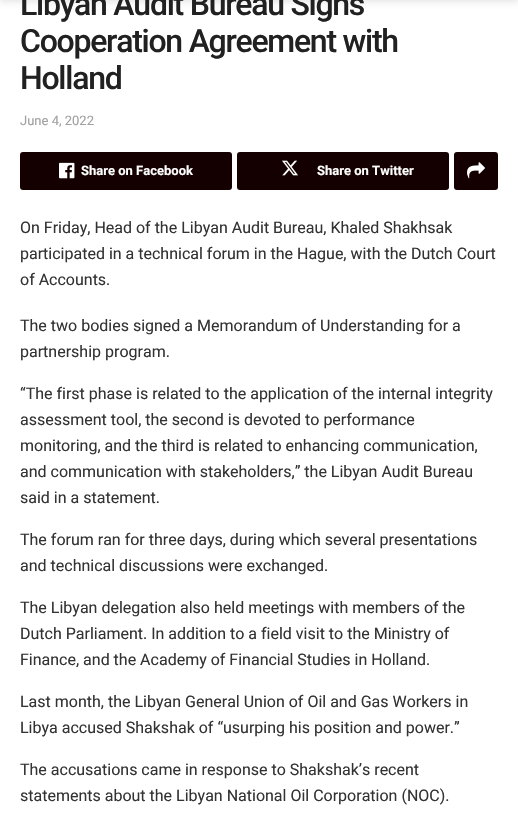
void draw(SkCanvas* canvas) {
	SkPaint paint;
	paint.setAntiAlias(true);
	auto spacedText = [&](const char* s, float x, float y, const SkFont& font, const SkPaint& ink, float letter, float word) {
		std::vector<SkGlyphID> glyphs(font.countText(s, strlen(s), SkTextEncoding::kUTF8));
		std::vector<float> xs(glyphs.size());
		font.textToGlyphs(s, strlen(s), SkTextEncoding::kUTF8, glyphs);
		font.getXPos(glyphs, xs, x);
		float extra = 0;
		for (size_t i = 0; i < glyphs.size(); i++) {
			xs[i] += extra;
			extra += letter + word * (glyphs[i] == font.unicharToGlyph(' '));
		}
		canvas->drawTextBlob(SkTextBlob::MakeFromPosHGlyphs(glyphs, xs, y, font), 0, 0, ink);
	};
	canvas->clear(0xffffffff);
	paint.setColor(0x1a000000);
	paint.setMaskFilter(SkMaskFilter::MakeBlur(kNormal_SkBlurStyle, 3));
	canvas->drawRect(SkRect::MakeXYWH(0, -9, 518, 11), paint);
	paint.setMaskFilter(nullptr);
	SkFont f1(fontMgr->matchFamilyStyle("Roboto", SkFontStyle(500, SkFontStyle::kNormal_Width, SkFontStyle::kUpright_Slant)), 32);
	f1.setSubpixel(true);
	paint.setColor(0xff212121);
	spacedText("Libyan Audit Bureau Signs", 20, 15, f1, paint, -1.25, 0);
	spacedText("Cooperation Agreement with", 20, 52, f1, paint, -1.25, 0);
	spacedText("Holland", 20, 89, f1, paint, -1.25, 0);
	SkFont f2(fontMgr->matchFamilyStyle("Roboto", SkFontStyle::Normal()), 13);
	f2.setSubpixel(true);
	paint.setColor(0xffa0a0a0);
	canvas->drawString("June 4, 2022", 20, 125, f2, paint);
	paint.setColor(0xff140000);
	canvas->drawRoundRect(SkRect::MakeXYWH(20, 152, 212, 38), 3, 3, paint);
	canvas->drawImageRect(SkImages::DeferredFromEncodedData(SkData::MakeFromFileName("img1.png")), SkRect::MakeXYWH(59, 162, 16, 17), SkSamplingOptions());
	SkFont f3(fontMgr->matchFamilyStyle("Roboto", SkFontStyle::Bold()), 13);
	f3.setSubpixel(true);
	paint.setColor(0xffffffff);
	canvas->drawString("Share on Facebook", 81, 175, f3, paint);
	paint.setColor(0xff140000);
	canvas->drawRoundRect(SkRect::MakeXYWH(237, 152, 212, 38), 3, 3, paint);
	canvas->drawImageRect(SkImages::DeferredFromEncodedData(SkData::MakeFromFileName("img2.png")), SkRect::MakeXYWH(282, 160, 16, 16), SkSamplingOptions());
	paint.setColor(0xffffffff);
	canvas->drawString("Share on Twitter", 317, 175, f3, paint);
	paint.setColor(0xff140000);
	canvas->drawRoundRect(SkRect::MakeXYWH(454, 152, 44, 38), 3, 3, paint);
	canvas->drawImageRect(SkImages::DeferredFromEncodedData(SkData::MakeFromFileName("img3.png")), SkRect::MakeXYWH(467, 162, 18, 17), SkSamplingOptions());
	SkFont f4(fontMgr->matchFamilyStyle("Roboto", SkFontStyle::Normal()), 16);
	f4.setSubpixel(true);
	paint.setColor(0xff333333);
	canvas->drawString("On Friday, Head of the Libyan Audit Bureau, Khaled Shakhsak", 20, 233, f4, paint);
	canvas->drawString("participated in a technical forum in the Hague, with the Dutch Court", 20, 259, f4, paint);
	canvas->drawString("of Accounts.", 20, 285, f4, paint);
	canvas->drawString("The two bodies signed a Memorandum of Understanding for a", 20, 331, f4, paint);
	canvas->drawString("partnership program.", 20, 357, f4, paint);
	canvas->drawString("“The first phase is related to the application of the internal integrity", 20, 399, f4, paint);
	canvas->drawString("assessment tool, the second is devoted to performance", 20, 425, f4, paint);
	canvas->drawString("monitoring, and the third is related to enhancing communication,", 20, 451, f4, paint);
	canvas->drawString("and communication with stakeholders,” the Libyan Audit Bureau", 20, 477, f4, paint);
	canvas->drawString("said in a statement.", 20, 503, f4, paint);
	canvas->drawString("The forum ran for three days, during which several presentations", 20, 545, f4, paint);
	canvas->drawString("and technical discussions were exchanged.", 20, 571, f4, paint);
	canvas->drawString("The Libyan delegation also held meetings with members of the", 20, 613, f4, paint);
	canvas->drawString("Dutch Parliament. In addition to a field visit to the Ministry of", 20, 639, f4, paint);
	canvas->drawString("Finance, and the Academy of Financial Studies in Holland.", 20, 665, f4, paint);
	canvas->drawString("Last month, the Libyan General Union of Oil and Gas Workers in", 20, 707, f4, paint);
	canvas->drawString("Libya accused Shakshak of “usurping his position and power.”", 20, 733, f4, paint);
	canvas->drawString("The accusations came in response to Shakshak’s recent", 20, 775, f4, paint);
	canvas->drawString("statements about the Libyan National Oil Corporation (NOC).", 20, 801, f4, paint);
}
